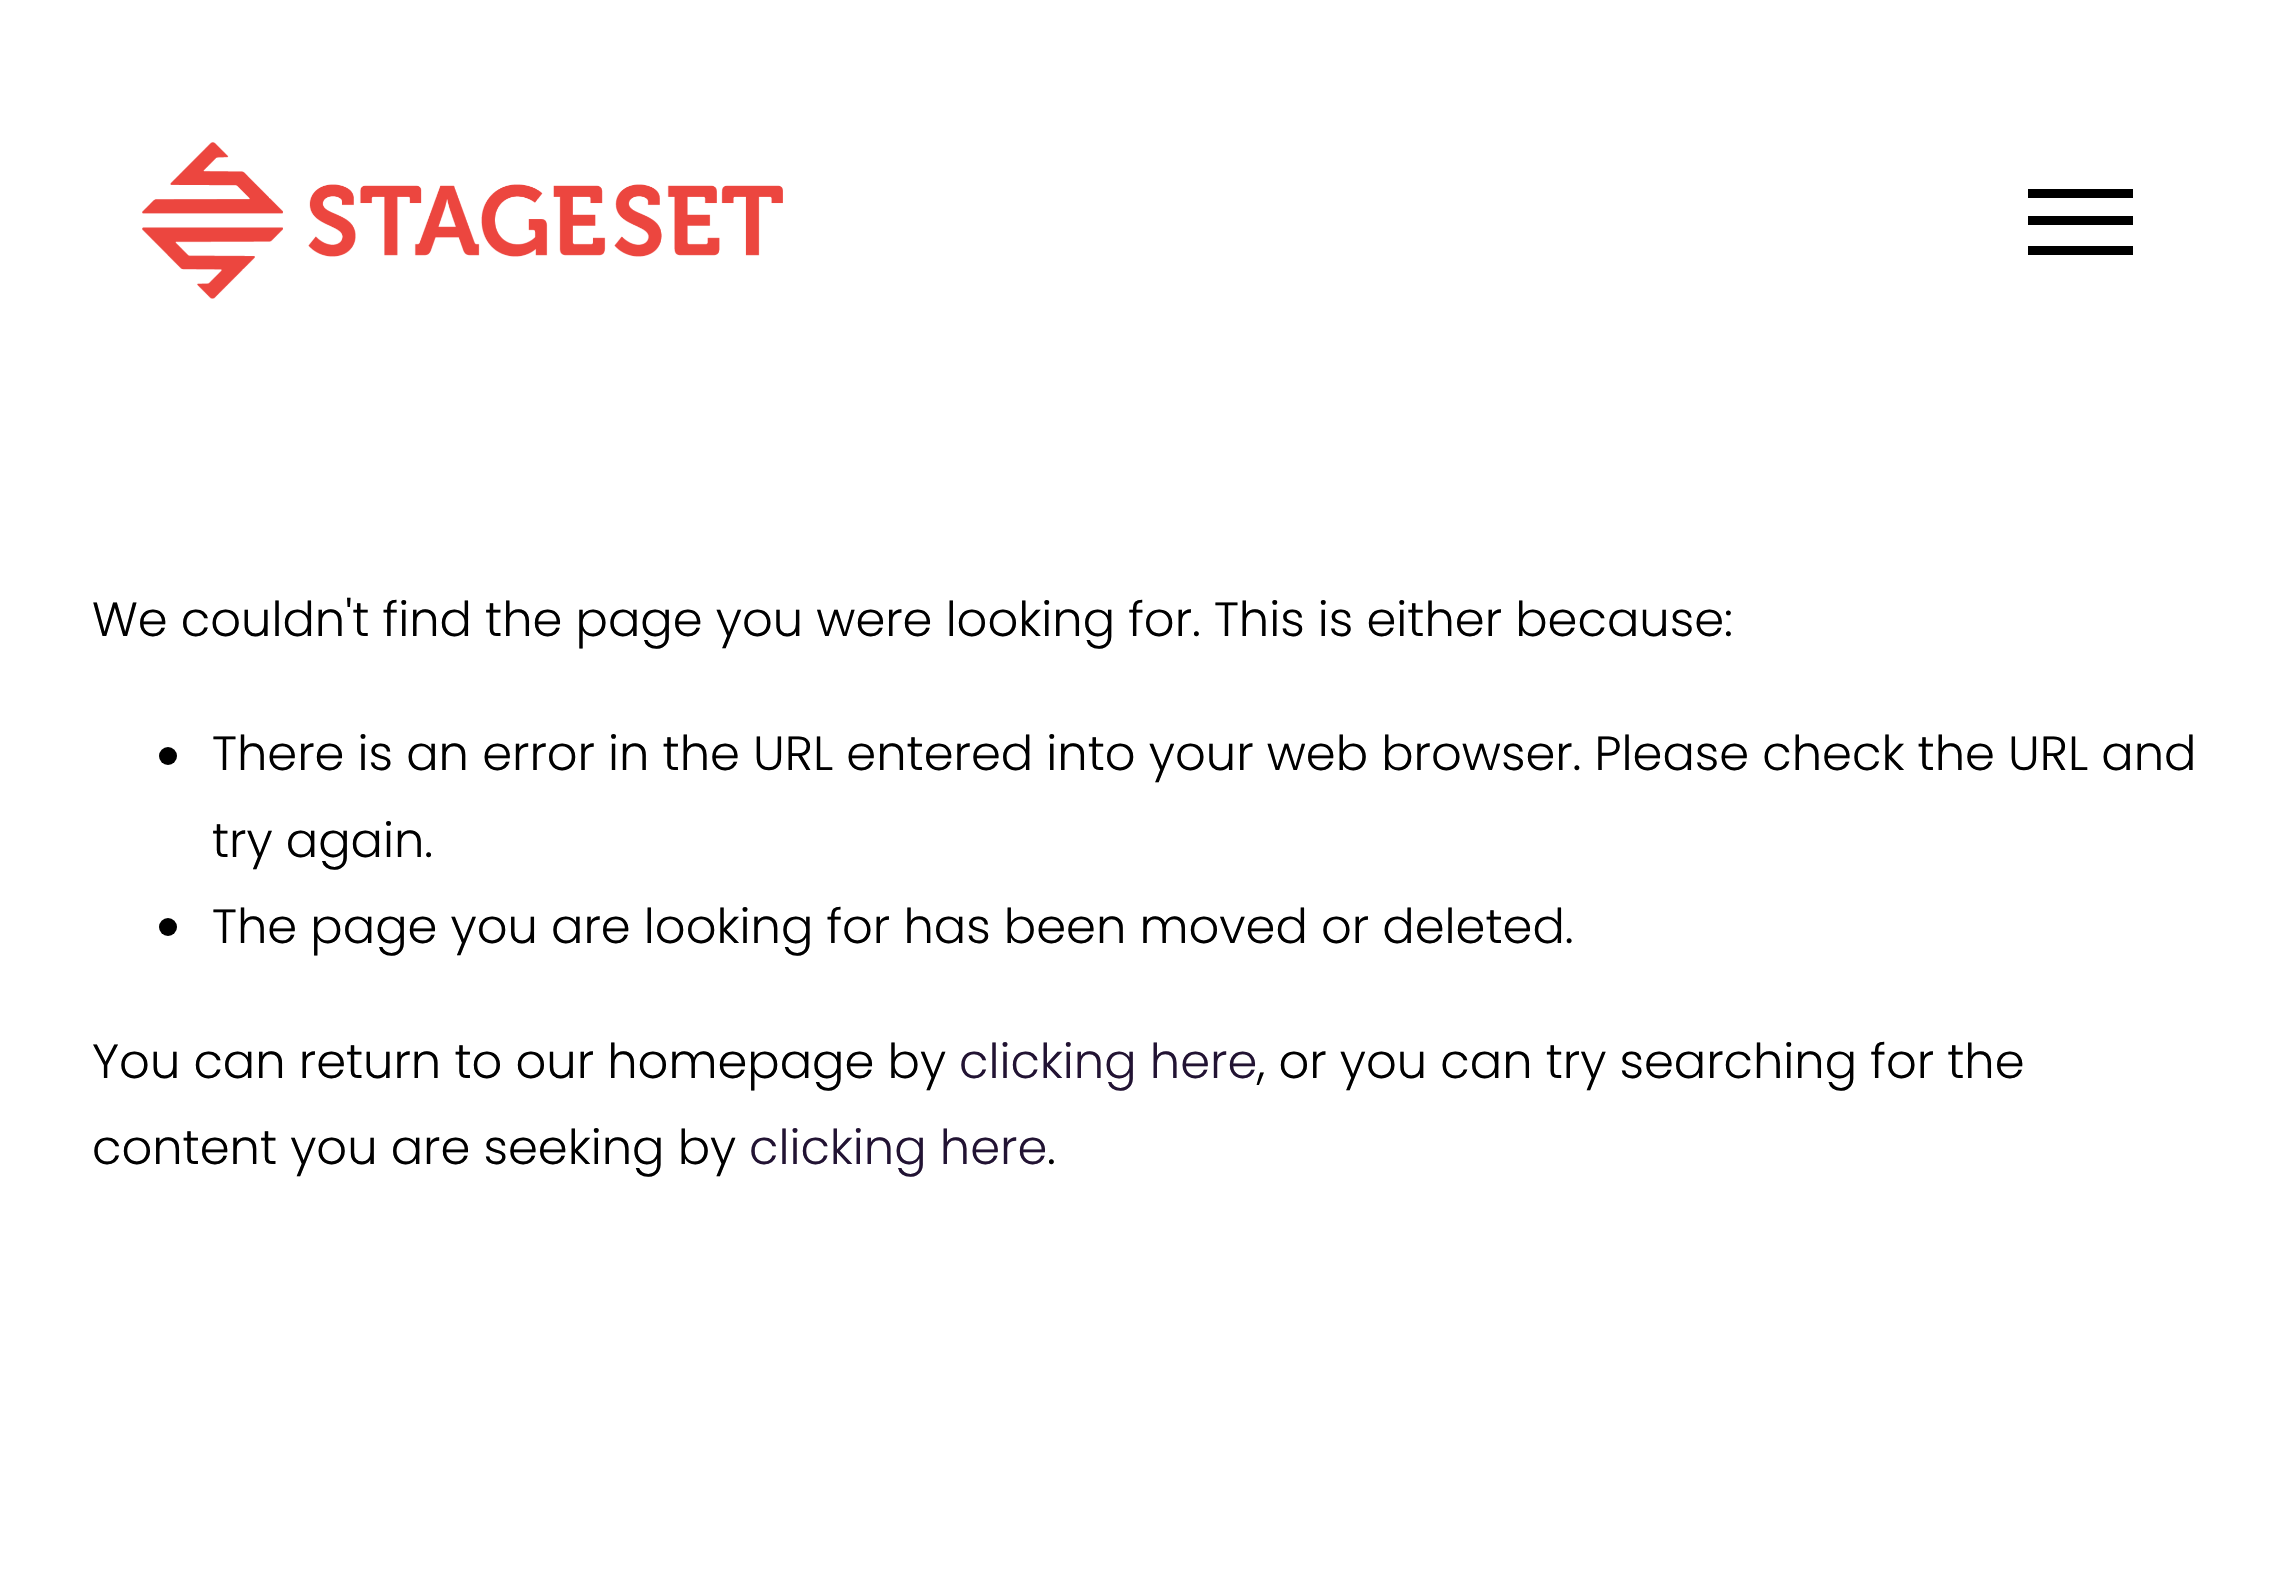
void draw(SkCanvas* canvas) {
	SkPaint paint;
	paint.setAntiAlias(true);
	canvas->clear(0xffffffff);
	canvas->drawImageRect(SkImages::DeferredFromEncodedData(SkData::MakeFromFileName("img1.png")), SkRect::MakeXYWH(142, 142, 641, 157), SkSamplingOptions());
	paint.setColor(0xff000000);
	canvas->drawRect(SkRect::MakeXYWH(2028, 189, 105, 9), paint);
	canvas->drawRect(SkRect::MakeXYWH(2028, 216, 105, 9), paint);
	canvas->drawRect(SkRect::MakeXYWH(2028, 246, 105, 9), paint);
	SkFont f1(fontMgr->matchFamilyStyle("Poppins", SkFontStyle(300, SkFontStyle::kNormal_Width, SkFontStyle::kUpright_Slant)), 48);
	f1.setSubpixel(true);
	canvas->drawString("We couldn't find the page you were looking for. This is either because:", 92, 636, f1, paint);
	canvas->drawCircle(168, 756, 9, paint);
	canvas->drawString("There is an error in the URL entered into your web browser. Please check the URL and", 212, 770, f1, paint);
	canvas->drawString("try again.", 212, 857, f1, paint);
	canvas->drawCircle(168, 927, 9, paint);
	canvas->drawString("The page you are looking for has been moved or deleted.", 212, 943, f1, paint);
	canvas->drawString("You can return to our homepage by", 92, 1078, f1, paint);
	paint.setColor(0xff221333);
	canvas->drawString("clicking here", 959, 1078, f1, paint);
	paint.setColor(0xff000000);
	canvas->drawString(", or you can try searching for the", 1257, 1078, f1, paint);
	canvas->drawString("content you are seeking by", 92, 1164, f1, paint);
	paint.setColor(0xff221333);
	canvas->drawString("clicking here", 749, 1164, f1, paint);
	paint.setColor(0xff000000);
	canvas->drawString(".", 1047, 1164, f1, paint);
}
